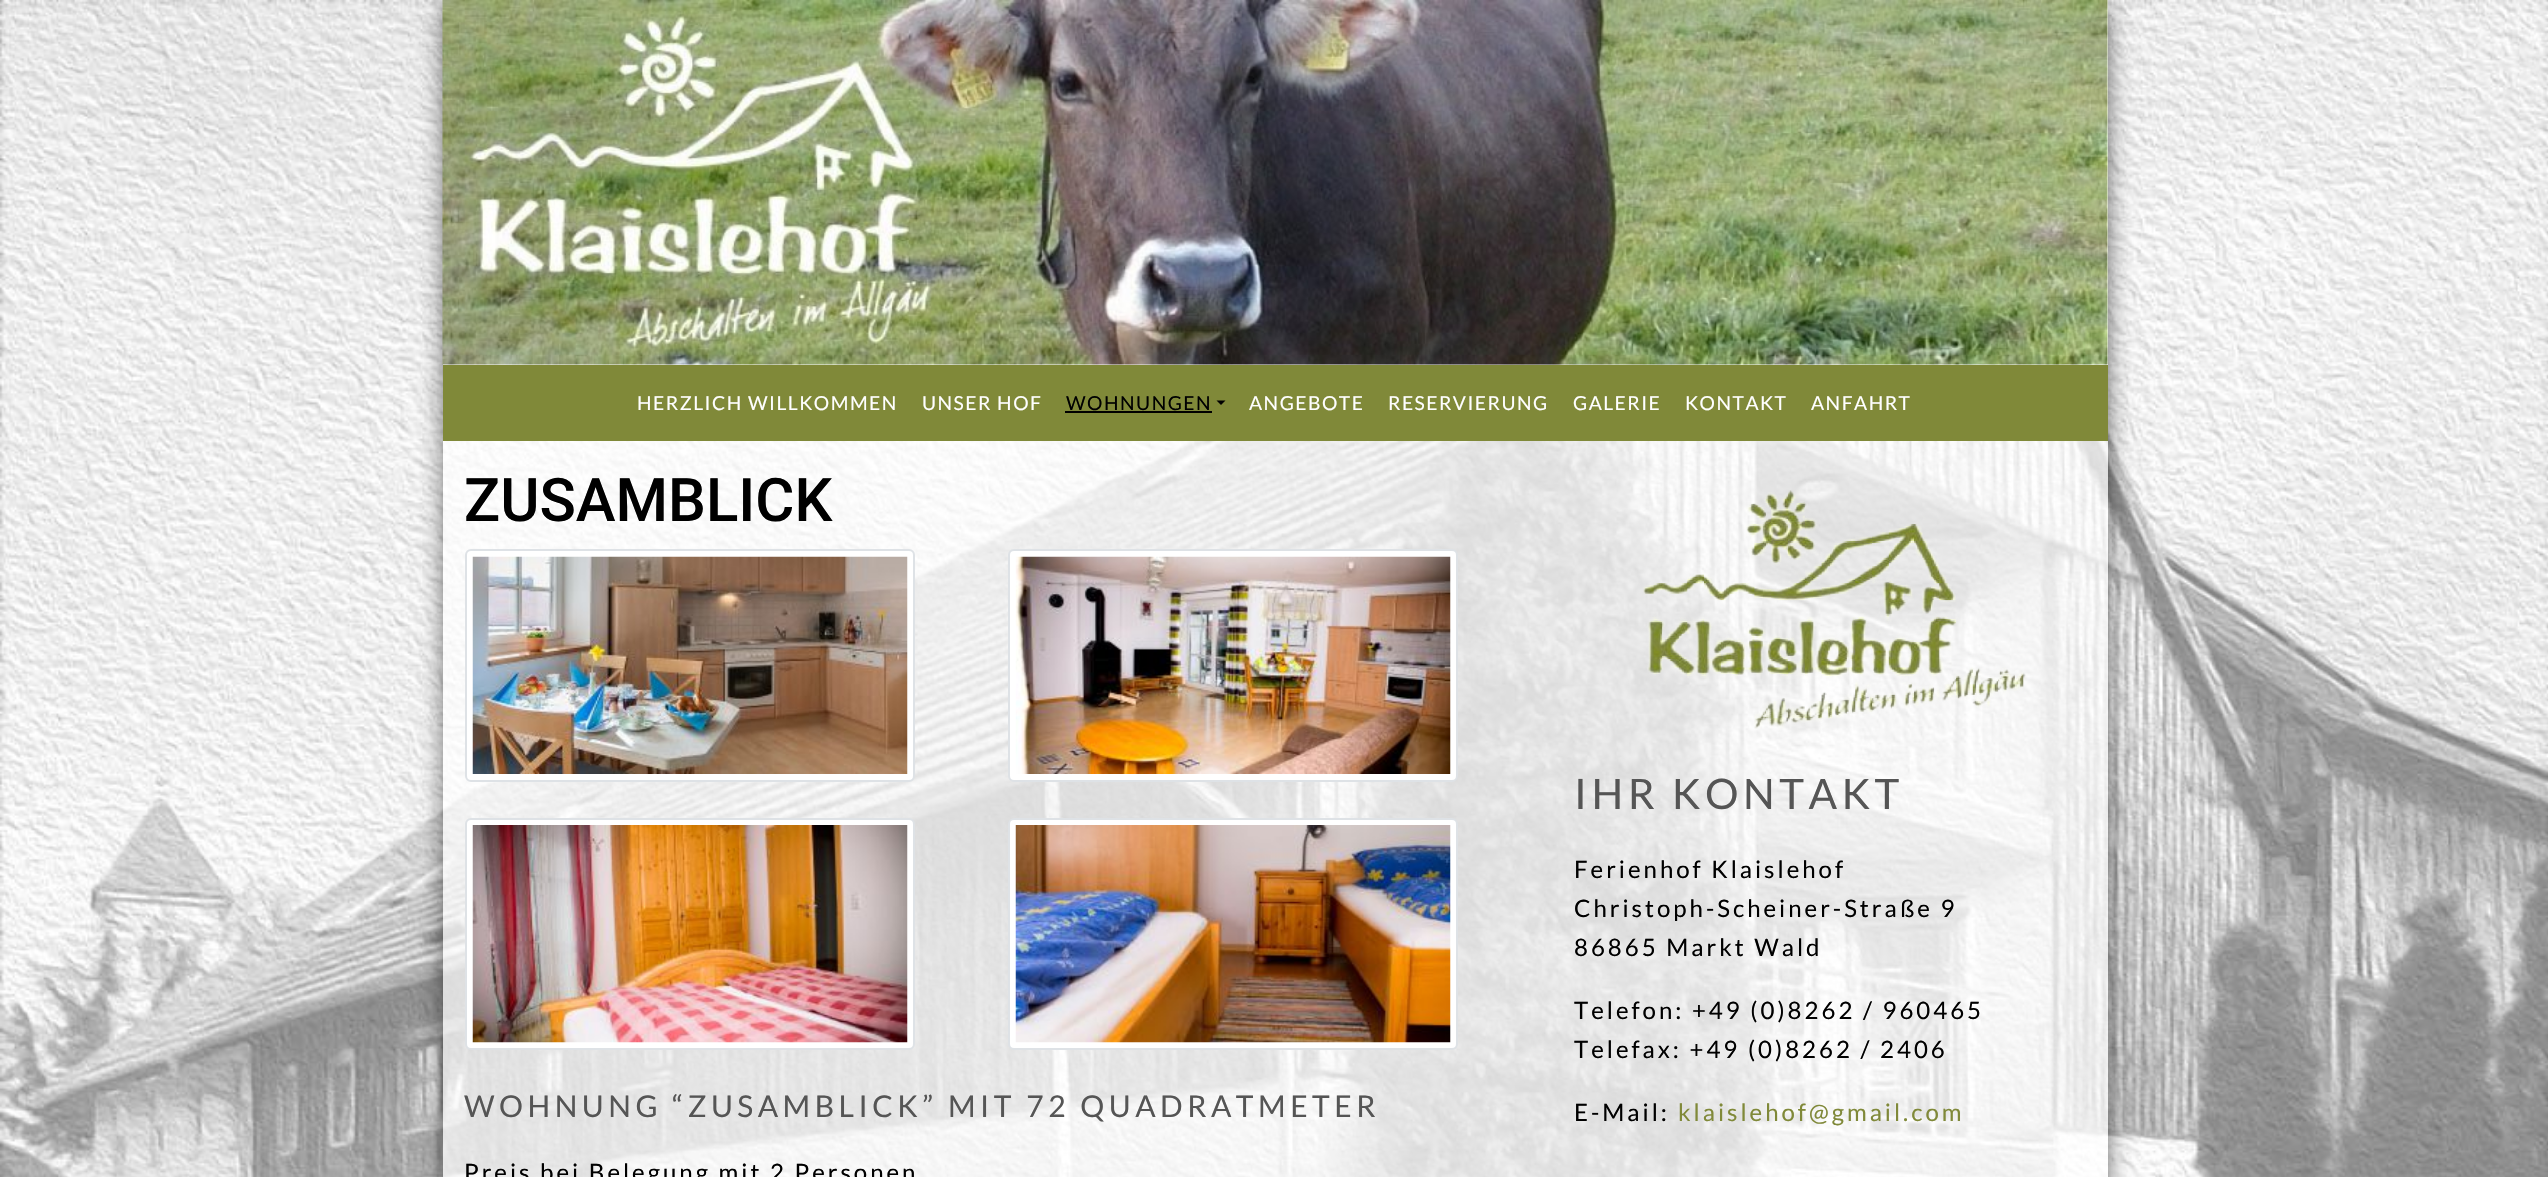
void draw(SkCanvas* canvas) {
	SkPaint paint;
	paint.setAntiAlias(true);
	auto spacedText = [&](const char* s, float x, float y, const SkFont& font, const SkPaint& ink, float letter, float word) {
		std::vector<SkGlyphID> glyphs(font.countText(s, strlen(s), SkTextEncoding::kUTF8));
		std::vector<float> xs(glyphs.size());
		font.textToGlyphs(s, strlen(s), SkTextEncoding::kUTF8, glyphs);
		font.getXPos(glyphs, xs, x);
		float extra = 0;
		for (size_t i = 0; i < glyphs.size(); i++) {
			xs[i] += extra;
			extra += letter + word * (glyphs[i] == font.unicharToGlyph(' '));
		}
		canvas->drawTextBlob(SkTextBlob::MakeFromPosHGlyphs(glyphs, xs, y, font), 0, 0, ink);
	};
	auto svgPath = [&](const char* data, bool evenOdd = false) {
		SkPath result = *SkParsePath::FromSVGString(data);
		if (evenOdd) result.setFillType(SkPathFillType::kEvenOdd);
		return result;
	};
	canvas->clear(0xffffffff);
	canvas->drawImageRect(SkImages::DeferredFromEncodedData(SkData::MakeFromFileName("img1.png")), SkRect::MakeXYWH(0, 0, 2548, 1177), SkSamplingOptions());
	canvas->save();
	canvas->clipPath(svgPath("M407 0H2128V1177H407ZM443 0H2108V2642H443Z", true), true);
	paint.setColor(0x66000000);
	paint.setMaskFilter(SkMaskFilter::MakeBlur(kNormal_SkBlurStyle, 11));
	canvas->drawRect(SkRect::MakeXYWH(441, 6, 1653, 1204), paint);
	paint.setMaskFilter(nullptr);
	canvas->restore();
	canvas->save();
	canvas->clipPath(svgPath("M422 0H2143V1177H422ZM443 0H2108V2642H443Z", true), true);
	paint.setColor(0x80000000);
	paint.setMaskFilter(SkMaskFilter::MakeBlur(kNormal_SkBlurStyle, 11));
	canvas->drawRect(SkRect::MakeXYWH(456, 6, 1653, 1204), paint);
	paint.setMaskFilter(nullptr);
	canvas->restore();
	paint.setColor(0xb3ffffff);
	canvas->drawRect(SkRect::MakeXYWH(443, 0, 1665, 1177), paint);
	canvas->drawImageRect(SkImages::DeferredFromEncodedData(SkData::MakeFromFileName("img2.png")), SkRect::MakeXYWH(442, 0, 1666, 365), SkSamplingOptions());
	paint.setColor(0xff808939);
	canvas->drawRect(SkRect::MakeXYWH(443, 365, 1665, 76), paint);
	SkFont f1(fontMgr->matchFamilyStyle("Lato", SkFontStyle::Normal()), 19.25);
	f1.setSubpixel(true);
	paint.setColor(0xffffffff);
	spacedText("HERZLICH WILLKOMMEN", 637, 410, f1, paint, 1.5, 0);
	spacedText("UNSER HOF", 922, 410, f1, paint, 1.5, 0);
	paint.setColor(0xff000000);
	spacedText("WOHNUNGEN", 1066, 410, f1, paint, 1.5, 0);
	canvas->drawRect(SkRect::MakeXYWH(1065, 411, 147, 2), paint);
	canvas->drawPath(svgPath("M1216.5 400.5H1225.5L1221 405Z"), paint);
	paint.setColor(0xffffffff);
	spacedText("ANGEBOTE", 1249, 410, f1, paint, 1.5, 0);
	spacedText("RESERVIERUNG", 1388, 410, f1, paint, 1.5, 0);
	spacedText("GALERIE", 1573, 410, f1, paint, 1.5, 0);
	spacedText("KONTAKT", 1685, 410, f1, paint, 1.5, 0);
	spacedText("ANFAHRT", 1811, 410, f1, paint, 1.5, 0);
	SkFont f2(fontMgr->matchFamilyStyle("Roboto", SkFontStyle(500, SkFontStyle::kNormal_Width, SkFontStyle::kUpright_Slant)), 60);
	f2.setSubpixel(true);
	paint.setColor(0xff000000);
	canvas->drawString("ZUSAMBLICK", 464, 521, f2, paint);
	paint.setColor(0xffffffff);
	canvas->drawRoundRect(SkRect::MakeXYWH(466, 550, 448, 231), 5, 5, paint);
	paint.setStroke(true);
	paint.setStrokeWidth(2);
	paint.setColor(0xffdee2e6);
	canvas->drawRoundRect(SkRect::MakeXYWH(466, 550, 448, 231), 5, 5, paint);
	canvas->drawImageRect(SkImages::DeferredFromEncodedData(SkData::MakeFromFileName("img3.png")), SkRect::MakeXYWH(472, 556, 436, 218), SkSamplingOptions());
	paint.setStroke(false);
	paint.setColor(0xffffffff);
	canvas->drawRoundRect(SkRect::MakeXYWH(1009, 550, 448, 231), 5, 5, paint);
	paint.setStroke(true);
	paint.setColor(0xffdee2e6);
	canvas->drawRoundRect(SkRect::MakeXYWH(1009, 550, 448, 231), 5, 5, paint);
	canvas->drawImageRect(SkImages::DeferredFromEncodedData(SkData::MakeFromFileName("img4.png")), SkRect::MakeXYWH(1015, 556, 436, 218), SkSamplingOptions());
	paint.setStroke(false);
	paint.setColor(0xffffffff);
	canvas->drawRoundRect(SkRect::MakeXYWH(466, 819, 448, 230), 5, 5, paint);
	paint.setStroke(true);
	paint.setColor(0xffdee2e6);
	canvas->drawRoundRect(SkRect::MakeXYWH(466, 819, 448, 230), 5, 5, paint);
	canvas->drawImageRect(SkImages::DeferredFromEncodedData(SkData::MakeFromFileName("img5.png")), SkRect::MakeXYWH(472, 825, 436, 218), SkSamplingOptions());
	paint.setStroke(false);
	paint.setColor(0xffffffff);
	canvas->drawRoundRect(SkRect::MakeXYWH(1009, 819, 448, 230), 5, 5, paint);
	paint.setStroke(true);
	paint.setColor(0xffdee2e6);
	canvas->drawRoundRect(SkRect::MakeXYWH(1009, 819, 448, 230), 5, 5, paint);
	canvas->drawImageRect(SkImages::DeferredFromEncodedData(SkData::MakeFromFileName("img6.png")), SkRect::MakeXYWH(1015, 825, 436, 218), SkSamplingOptions());
	SkFont f3(fontMgr->matchFamilyStyle("Lato", SkFontStyle::Normal()), 30);
	f3.setSubpixel(true);
	paint.setStroke(false);
	paint.setColor(0xff555555);
	spacedText("WOHNUNG “ZUSAMBLICK” MIT 72 QUADRATMETER", 464, 1117, f3, paint, 4.5, 0);
	SkFont f4(fontMgr->matchFamilyStyle("Lato", SkFontStyle::Normal()), 24);
	f4.setSubpixel(true);
	paint.setColor(0xff000000);
	spacedText("Preis bei Belegung mit 2 Personen", 464, 1181, f4, paint, 3, 0);
	canvas->drawImageRect(SkImages::DeferredFromEncodedData(SkData::MakeFromFileName("img7.png")), SkRect::MakeXYWH(1643, 490, 383, 239), SkSamplingOptions());
	SkFont f5(fontMgr->matchFamilyStyle("Lato", SkFontStyle::Normal()), 42);
	f5.setSubpixel(true);
	paint.setColor(0xff555555);
	spacedText("IHR KONTAKT", 1574, 809, f5, paint, 4.5, 0);
	paint.setColor(0xff000000);
	spacedText("Ferienhof Klaislehof", 1574, 878, f4, paint, 3, 0);
	spacedText("Christoph-Scheiner-Straße 9", 1574, 917, f4, paint, 3, 0);
	spacedText("86865 Markt Wald", 1574, 956, f4, paint, 3, 0);
	spacedText("Telefon: +49 (0)8262 / 960465", 1574, 1019, f4, paint, 3, 0);
	spacedText("Telefax: +49 (0)8262 / 2406", 1574, 1058, f4, paint, 3, 0);
	spacedText("E-Mail:", 1574, 1121, f4, paint, 3, 0);
	paint.setColor(0xff808939);
	spacedText("klaislehof@gmail.com", 1678, 1121, f4, paint, 3, 0);
}
